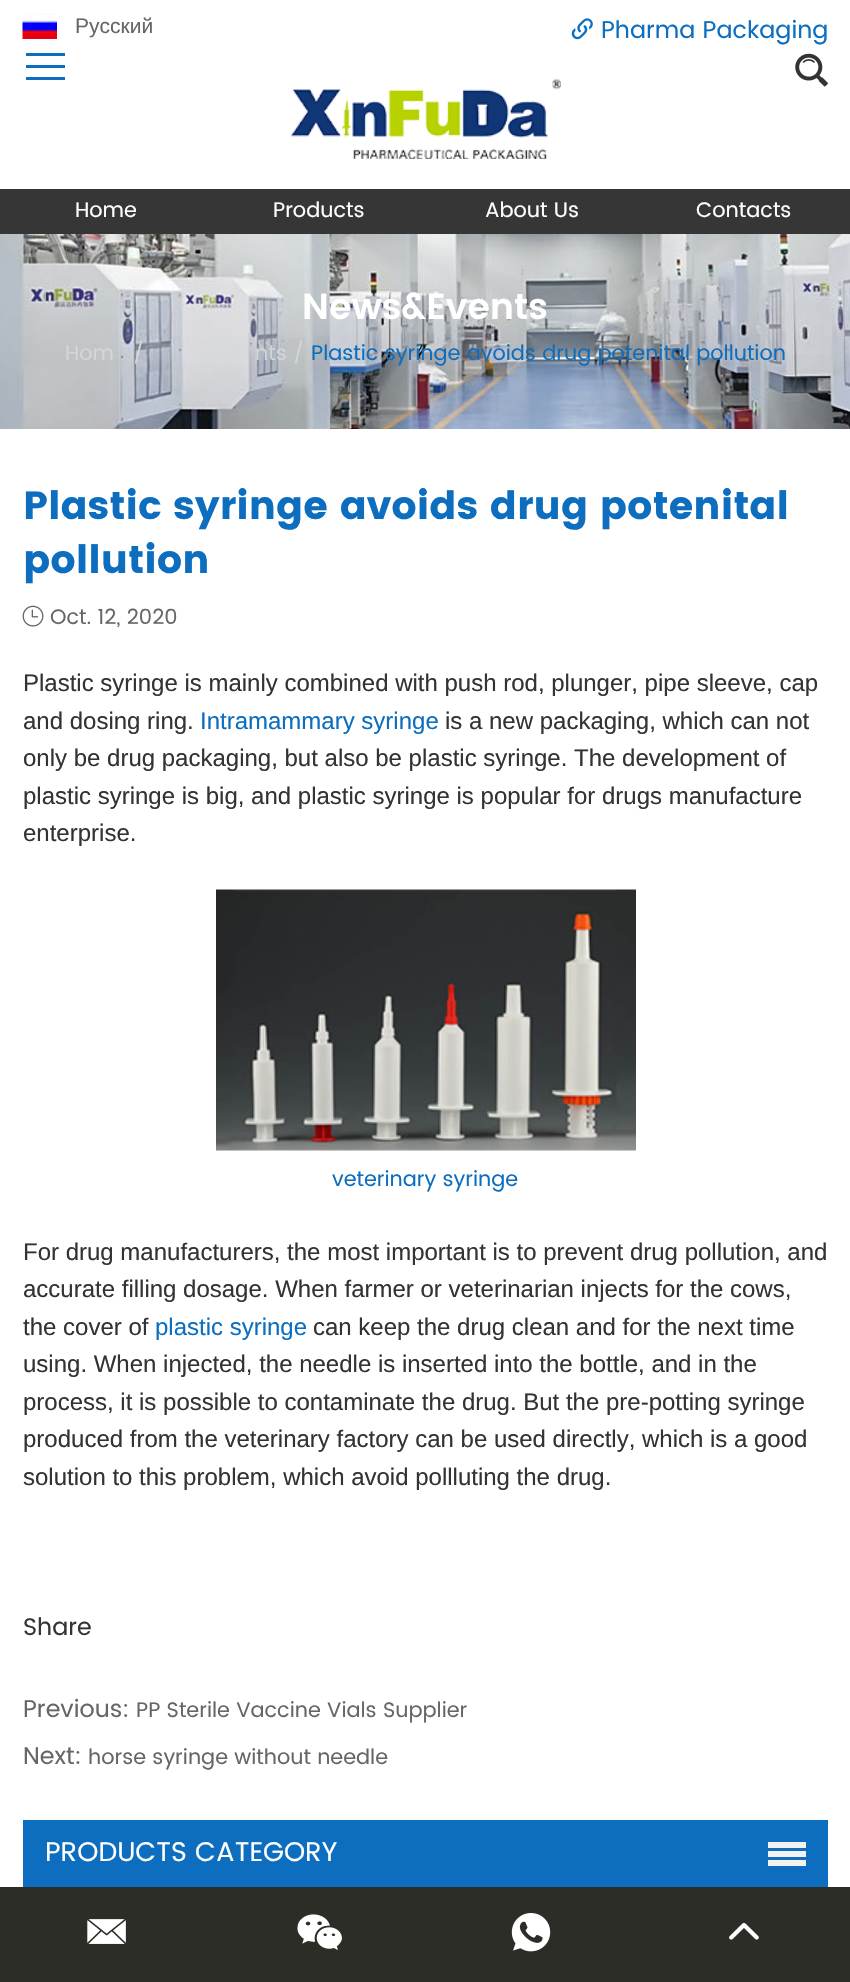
void draw(SkCanvas* canvas) {
	SkPaint paint;
	paint.setAntiAlias(true);
	canvas->clear(0xffffffff);
	canvas->drawImageRect(SkImages::DeferredFromEncodedData(SkData::MakeFromFileName("img1.png")), SkRect::MakeXYWH(22, 13, 35, 26), SkSamplingOptions());
	SkFont f1(fontMgr->matchFamilyStyle("Liberation Sans", SkFontStyle::Normal()), 21);
	f1.setSubpixel(true);
	paint.setColor(0xff666666);
	canvas->drawString("Русский", 75, 33, f1, paint);
	canvas->drawImageRect(SkImages::DeferredFromEncodedData(SkData::MakeFromFileName("img2.png")), SkRect::MakeXYWH(571, 18, 22, 22), SkSamplingOptions());
	SkFont f2(fontMgr->matchFamilyStyle("Poppins", SkFontStyle::Normal()), 24);
	f2.setSubpixel(true);
	paint.setColor(0xff0d6ebf);
	canvas->drawString("Pharma Packaging", 601, 38, f2, paint);
	canvas->drawImageRect(SkImages::DeferredFromEncodedData(SkData::MakeFromFileName("img3.png")), SkRect::MakeXYWH(795, 53, 33, 34), SkSamplingOptions());
	canvas->drawImageRect(SkImages::DeferredFromEncodedData(SkData::MakeFromFileName("img4.png")), SkRect::MakeXYWH(291, 79, 270, 80), SkSamplingOptions());
	canvas->drawRect(SkRect::MakeXYWH(26, 53, 39, 3), paint);
	canvas->drawRect(SkRect::MakeXYWH(26, 65, 39, 3), paint);
	canvas->drawRect(SkRect::MakeXYWH(26, 77, 39, 3), paint);
	paint.setColor(0xff363636);
	canvas->drawRect(SkRect::MakeXYWH(0, 189, 213, 45), paint);
	SkFont f3(fontMgr->matchFamilyStyle("Poppins", SkFontStyle::Normal()), 21);
	f3.setSubpixel(true);
	paint.setColor(0xffffffff);
	canvas->drawString("Home", 75, 217, f3, paint);
	paint.setColor(0xff363636);
	canvas->drawRect(SkRect::MakeXYWH(213, 189, 637, 45), paint);
	paint.setColor(0xffffffff);
	canvas->drawString("Products", 273, 217, f3, paint);
	canvas->drawString("About Us", 485, 217, f3, paint);
	canvas->drawString("Contacts", 696, 217, f3, paint);
	canvas->drawImageRect(SkImages::DeferredFromEncodedData(SkData::MakeFromFileName("img5.png")), SkRect::MakeXYWH(0, 234, 850, 195), SkSamplingOptions());
	SkFont f4(fontMgr->matchFamilyStyle("Poppins", SkFontStyle(600, SkFontStyle::kNormal_Width, SkFontStyle::kUpright_Slant)), 36);
	f4.setSubpixel(true);
	canvas->drawString("News&Events", 302, 319, f4, paint);
	paint.setColor(0xffd5d5d5);
	canvas->drawString("Hom", 65, 360, f3, paint);
	canvas->drawString("/", 133, 360, f3, paint);
	canvas->drawString("nts /", 255, 360, f3, paint);
	paint.setColor(0xff0d6ebf);
	canvas->drawString("Plastic syringe avoids drug potenital pollution", 311, 360, f3, paint);
	SkFont f5(fontMgr->matchFamilyStyle("Poppins", SkFontStyle::Bold()), 39);
	f5.setSubpixel(true);
	canvas->drawString("Plastic syringe avoids drug potenital", 23, 519, f5, paint);
	canvas->drawString("pollution", 23, 573, f5, paint);
	canvas->drawImageRect(SkImages::DeferredFromEncodedData(SkData::MakeFromFileName("img6.png")), SkRect::MakeXYWH(22, 605, 22, 22), SkSamplingOptions());
	paint.setColor(0xff666666);
	canvas->drawString("Oct. 12, 2020", 50, 624, f3, paint);
	SkFont f6(fontMgr->matchFamilyStyle("Liberation Sans", SkFontStyle::Normal()), 24);
	f6.setSubpixel(true);
	paint.setColor(0xff333333);
	canvas->drawString("Plastic syringe is mainly combined with push rod, plunger, pipe sleeve, cap", 23, 691, f6, paint);
	canvas->drawString("and dosing ring.", 23, 729, f6, paint);
	paint.setColor(0xff0d6ebf);
	canvas->drawString("Intramammary syringe", 200, 729, f6, paint);
	paint.setColor(0xff333333);
	canvas->drawString("is a new packaging, which can not", 445, 729, f6, paint);
	canvas->drawString("only be drug packaging, but also be plastic syringe. The development of", 23, 766, f6, paint);
	canvas->drawString("plastic syringe is big, and plastic syringe is popular for drugs manufacture", 23, 804, f6, paint);
	canvas->drawString("enterprise.", 23, 841, f6, paint);
	canvas->drawImageRect(SkImages::DeferredFromEncodedData(SkData::MakeFromFileName("img7.png")), SkRect::MakeXYWH(216, 889, 420, 262), SkSamplingOptions());
	paint.setColor(0xff0d6ebf);
	canvas->drawString("veterinary syringe", 332, 1186, f3, paint);
	paint.setColor(0xff333333);
	canvas->drawString("For drug manufacturers, the most important is to prevent drug pollution, and", 23, 1260, f6, paint);
	canvas->drawString("accurate filling dosage. When farmer or veterinarian injects for the cows,", 23, 1297, f6, paint);
	canvas->drawString("the cover of", 23, 1335, f6, paint);
	paint.setColor(0xff0d6ebf);
	canvas->drawString("plastic syringe", 155, 1335, f6, paint);
	paint.setColor(0xff333333);
	canvas->drawString("can keep the drug clean and for the next time", 313, 1335, f6, paint);
	canvas->drawString("using. When injected, the needle is inserted into the bottle, and in the", 23, 1372, f6, paint);
	canvas->drawString("process, it is possible to contaminate the drug. But the pre-potting syringe", 23, 1410, f6, paint);
	canvas->drawString("produced from the veterinary factory can be used directly, which is a good", 23, 1447, f6, paint);
	canvas->drawString("solution to this problem, which avoid pollluting the drug.", 23, 1485, f6, paint);
	canvas->drawString("Share", 23, 1635, f2, paint);
	paint.setColor(0xff666666);
	canvas->drawString("Previous:", 23, 1717, f2, paint);
	canvas->drawString("PP Sterile Vaccine Vials Supplier", 136, 1717, f3, paint);
	canvas->drawString("Next:", 23, 1764, f2, paint);
	canvas->drawString("horse syringe without needle", 88, 1764, f3, paint);
	paint.setColor(0xff0d6ebf);
	canvas->drawRect(SkRect::MakeXYWH(23, 1820, 805, 67), paint);
	SkFont f7(fontMgr->matchFamilyStyle("Poppins", SkFontStyle::Normal()), 27);
	f7.setSubpixel(true);
	paint.setColor(0xffffffff);
	canvas->drawString("PRODUCTS CATEGORY", 45, 1861, f7, paint);
	paint.setColor(0xfff2f2f2);
	canvas->drawRect(SkRect::MakeXYWH(768, 1842, 38, 6), paint);
	canvas->drawRect(SkRect::MakeXYWH(768, 1851, 38, 6), paint);
	canvas->drawRect(SkRect::MakeXYWH(768, 1860, 38, 6), paint);
	paint.setColor(0xff2d2d27);
	canvas->drawRect(SkRect::MakeXYWH(0, 1887, 850, 95), paint);
	canvas->drawImageRect(SkImages::DeferredFromEncodedData(SkData::MakeFromFileName("img8.png")), SkRect::MakeXYWH(87, 1919, 39, 25), SkSamplingOptions());
	canvas->drawImageRect(SkImages::DeferredFromEncodedData(SkData::MakeFromFileName("img9.png")), SkRect::MakeXYWH(297, 1914, 45, 36), SkSamplingOptions());
	canvas->drawImageRect(SkImages::DeferredFromEncodedData(SkData::MakeFromFileName("img10.png")), SkRect::MakeXYWH(511, 1913, 40, 39), SkSamplingOptions());
	canvas->drawImageRect(SkImages::DeferredFromEncodedData(SkData::MakeFromFileName("img11.png")), SkRect::MakeXYWH(729, 1922, 30, 18), SkSamplingOptions());
}
